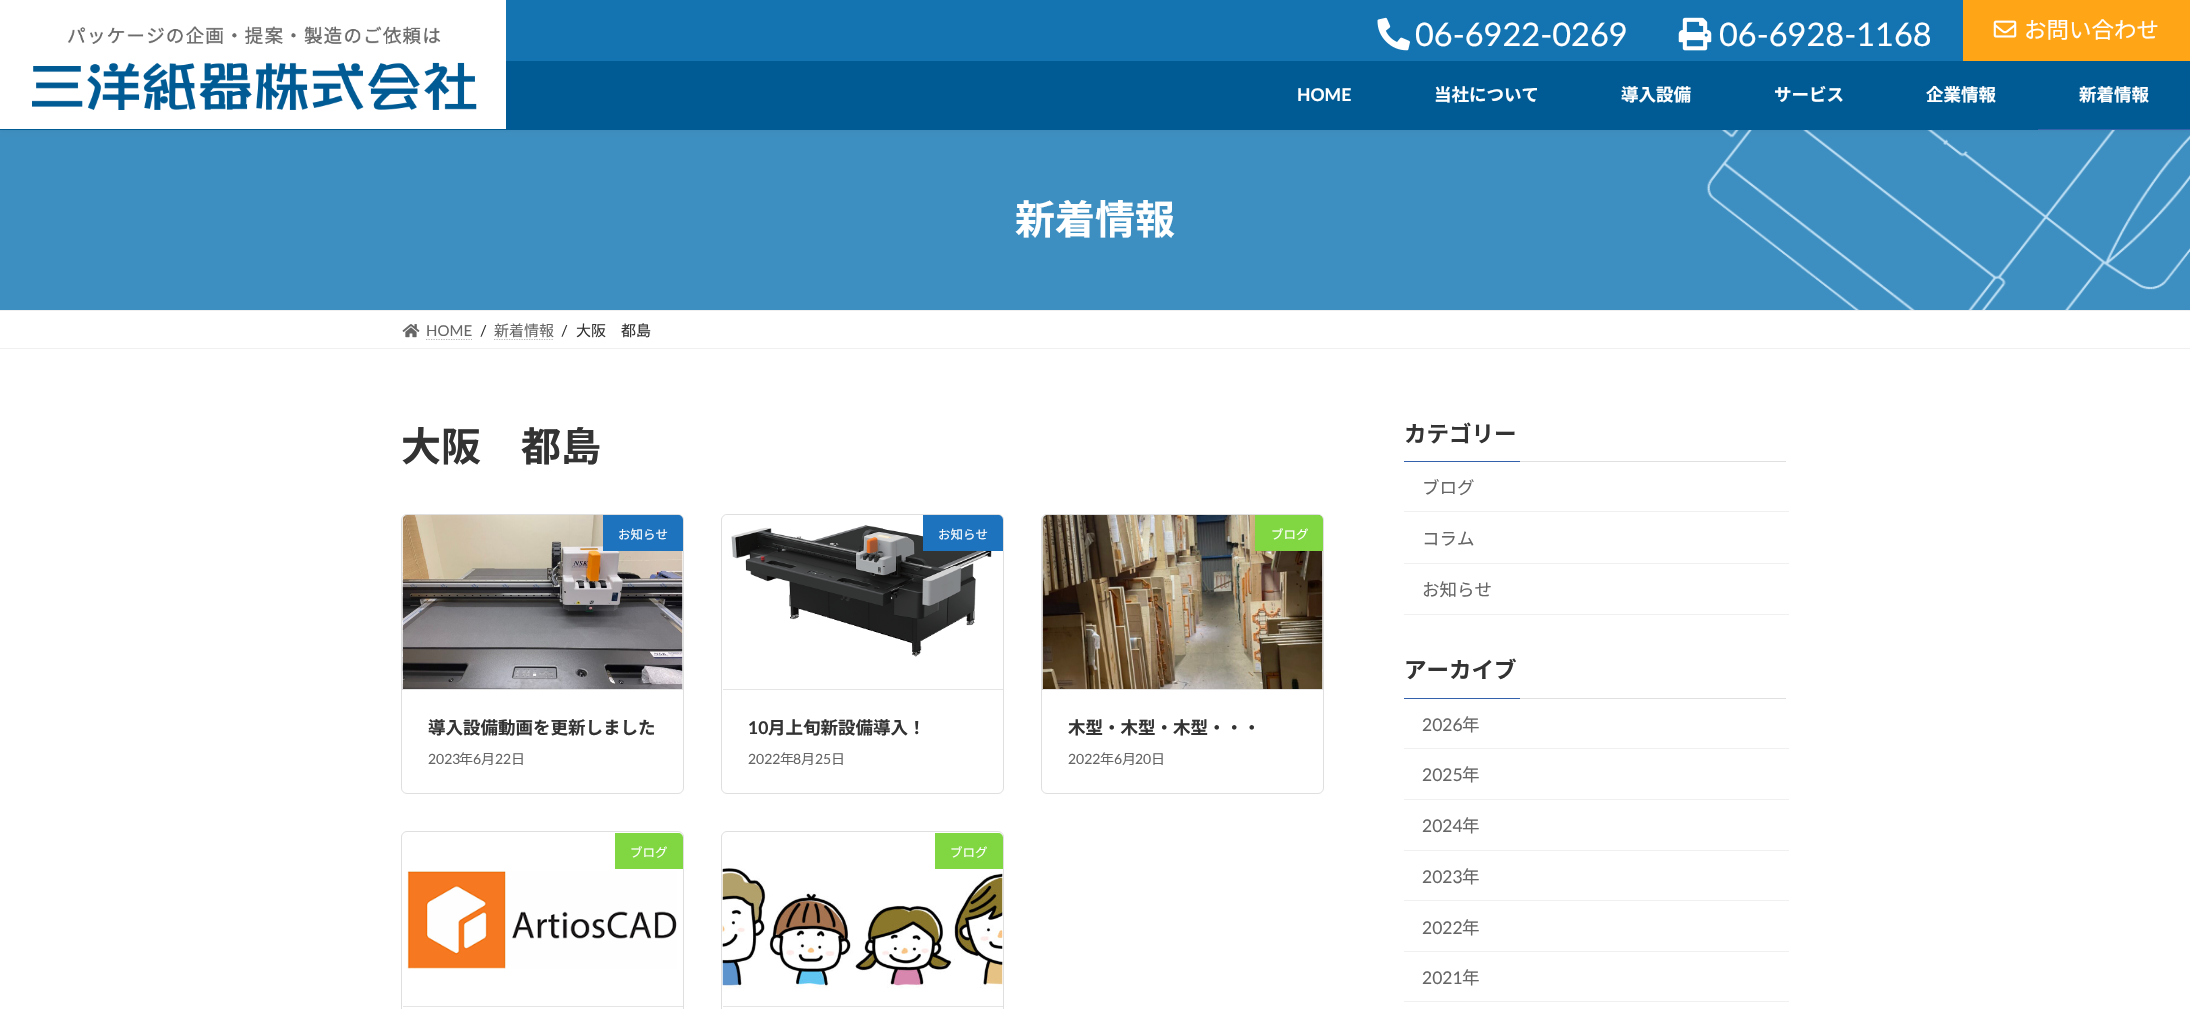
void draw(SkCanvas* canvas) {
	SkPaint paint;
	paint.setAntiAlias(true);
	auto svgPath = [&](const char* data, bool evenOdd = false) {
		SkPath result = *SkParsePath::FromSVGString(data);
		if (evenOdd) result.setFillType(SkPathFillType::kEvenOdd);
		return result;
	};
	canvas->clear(0xffffffff);
	canvas->drawImageRect(SkImages::DeferredFromEncodedData(SkData::MakeFromFileName("img5.png")), SkRect::MakeXYWH(0, 130, 2190, 180), SkSamplingOptions());
	paint.setColor(0x0d000000);
	paint.setMaskFilter(SkMaskFilter::MakeBlur(kNormal_SkBlurStyle, 2));
	canvas->drawRect(SkRect::MakeXYWH(0, -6, 2190, 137), paint);
	paint.setMaskFilter(nullptr);
	paint.setColor(0xff1374b1);
	canvas->drawRect(SkRect::MakeXYWH(506, 0, 1457, 61), paint);
	canvas->drawImageRect(SkImages::DeferredFromEncodedData(SkData::MakeFromFileName("img1.png")), SkRect::MakeXYWH(1377, 17, 33, 34), SkSamplingOptions());
	SkFont f1(fontMgr->matchFamilyStyle("Lato", SkFontStyle::Normal()), 32.5);
	f1.setSubpixel(true);
	paint.setColor(0xffffffff);
	canvas->drawString("06-6922-0269", 1415, 46, f1, paint);
	canvas->drawImageRect(SkImages::DeferredFromEncodedData(SkData::MakeFromFileName("img2.png")), SkRect::MakeXYWH(1678, 17, 34, 34), SkSamplingOptions());
	canvas->drawString("06-6928-1168", 1719, 46, f1, paint);
	paint.setColor(0xffffa516);
	canvas->drawRect(SkRect::MakeXYWH(1963, 0, 227, 61), paint);
	canvas->drawImageRect(SkImages::DeferredFromEncodedData(SkData::MakeFromFileName("img3.png")), SkRect::MakeXYWH(1993, 20, 24, 18), SkSamplingOptions());
	SkFont f2(fontMgr->matchFamilyStyle("Noto Sans JP", SkFontStyle::Normal()), 22.5);
	f2.setSubpixel(true);
	paint.setColor(0xffffffff);
	canvas->drawString("お問い合わせ", 2024, 38, f2, paint);
	paint.setColor(0xff005b94);
	canvas->drawRect(SkRect::MakeXYWH(0, 61, 2190, 69), paint);
	paint.setColor(0xffffffff);
	canvas->drawRect(SkRect::MakeXYWH(0, 0, 506, 129), paint);
	canvas->drawImageRect(SkImages::DeferredFromEncodedData(SkData::MakeFromFileName("img4.png")), SkRect::MakeXYWH(32, 26, 445, 84), SkSamplingOptions());
	SkFont f3(fontMgr->matchFamilyStyle("Lato", SkFontStyle::Bold()), 17.5);
	f3.setSubpixel(true);
	canvas->drawString("HOME", 1297, 101, f3, paint);
	SkFont f4(fontMgr->matchFamilyStyle("Noto Sans JP", SkFontStyle::Bold()), 17.5);
	f4.setSubpixel(true);
	canvas->drawString("当社について", 1434, 101, f4, paint);
	canvas->drawString("導入設備", 1621, 101, f4, paint);
	canvas->drawString("サービス", 1774, 101, f4, paint);
	canvas->drawString("企業情報", 1926, 101, f4, paint);
	canvas->drawString("新着情報", 2079, 101, f4, paint);
	paint.setColor(0xff3461ac);
	canvas->drawRect(SkRect::MakeXYWH(2038, 129, 152, 1), paint);
	SkFont f5(fontMgr->matchFamilyStyle("Noto Sans JP", SkFontStyle::Bold()), 40);
	f5.setSubpixel(true);
	paint.setColor(0xffffffff);
	canvas->drawString("新着情報", 1015, 234, f5, paint);
	paint.setColor(0xfff0f0f0);
	canvas->drawRect(SkRect::MakeXYWH(0, 310, 2190, 1), paint);
	canvas->drawRect(SkRect::MakeXYWH(0, 348, 2190, 1), paint);
	canvas->drawImageRect(SkImages::DeferredFromEncodedData(SkData::MakeFromFileName("img6.png")), SkRect::MakeXYWH(402, 324, 18, 14), SkSamplingOptions());
	SkFont f6(fontMgr->matchFamilyStyle("Lato", SkFontStyle::Normal()), 15);
	f6.setSubpixel(true);
	paint.setColor(0xff666666);
	canvas->drawString("HOME", 426, 336, f6, paint);
	paint.setStroke(true);
	paint.setStrokeWidth(1.2);
	paint.setColor(0xffb3b3b3);
	paint.setPathEffect(SkDashPathEffect::Make({{1.25f, 1.25f}}, 0));
	canvas->drawPath(svgPath("M426 339.5H472"), paint);
	paint.setPathEffect(nullptr);
	paint.setStroke(false);
	paint.setColor(0xff333333);
	canvas->drawString("/", 480, 336, f6, paint);
	SkFont f7(fontMgr->matchFamilyStyle("Noto Sans JP", SkFontStyle::Normal()), 15);
	f7.setSubpixel(true);
	paint.setColor(0xff666666);
	canvas->drawString("新着情報", 494, 336, f7, paint);
	paint.setStroke(true);
	paint.setColor(0xffb3b3b3);
	paint.setPathEffect(SkDashPathEffect::Make({{1.25f, 1.25f}}, 0));
	canvas->drawPath(svgPath("M494 339.5H554"), paint);
	paint.setPathEffect(nullptr);
	paint.setStroke(false);
	paint.setColor(0xff333333);
	canvas->drawString("/", 561, 336, f6, paint);
	canvas->drawString("大阪　都島", 576, 336, f7, paint);
	canvas->drawString("大阪　都島", 401, 461, f5, paint);
	paint.setStroke(true);
	paint.setStrokeWidth(1);
	paint.setColor(0xffdfdfdf);
	canvas->drawRoundRect(SkRect::MakeXYWH(401.5, 514.5, 282, 279), 5.5, 5.5, paint);
	canvas->drawImageRect(SkImages::DeferredFromEncodedData(SkData::MakeFromFileName("img7.png")), SkRect::MakeXYWH(402, 515, 281, 175), SkSamplingOptions());
	paint.setStroke(false);
	paint.setColor(0xffe5e5e5);
	canvas->drawRect(SkRect::MakeXYWH(403, 689, 280, 1), paint);
	paint.setColor(0xff1e73be);
	canvas->drawPath(svgPath("M603 515H678C681 515 683 517 683 520V551H603Z"), paint);
	SkFont f8(fontMgr->matchFamilyStyle("Noto Sans JP", SkFontStyle::Normal()), 12.5);
	f8.setSubpixel(true);
	paint.setColor(0xffffffff);
	canvas->drawString("お知らせ", 618, 539, f8, paint);
	paint.setColor(0xff333333);
	canvas->drawString("導入設備動画を更新しました", 428, 734, f4, paint);
	SkFont f9(fontMgr->matchFamilyStyle("Lato", SkFontStyle::Normal()), 14);
	f9.setSubpixel(true);
	paint.setColor(0xff666666);
	canvas->drawString("2023", 428, 764, f9, paint);
	SkFont f10(fontMgr->matchFamilyStyle("Noto Sans JP", SkFontStyle::Normal()), 14);
	f10.setSubpixel(true);
	canvas->drawString("年", 459, 764, f10, paint);
	canvas->drawString("6", 473, 764, f9, paint);
	canvas->drawString("月", 481, 764, f10, paint);
	canvas->drawString("22", 495, 764, f9, paint);
	canvas->drawString("日", 511, 764, f10, paint);
	paint.setStroke(true);
	paint.setColor(0xffdfdfdf);
	canvas->drawRoundRect(SkRect::MakeXYWH(721.5, 514.5, 282, 279), 5.5, 5.5, paint);
	canvas->drawImageRect(SkImages::DeferredFromEncodedData(SkData::MakeFromFileName("img8.png")), SkRect::MakeXYWH(725, 515, 275, 142), SkSamplingOptions());
	paint.setStroke(false);
	paint.setColor(0xffe5e5e5);
	canvas->drawRect(SkRect::MakeXYWH(723, 689, 280, 1), paint);
	paint.setColor(0xff1e73be);
	canvas->drawPath(svgPath("M923 515H998C1001 515 1003 517 1003 520V551H923Z"), paint);
	paint.setColor(0xffffffff);
	canvas->drawString("お知らせ", 938, 539, f8, paint);
	paint.setColor(0xff333333);
	canvas->drawString("10", 748, 734, f3, paint);
	canvas->drawString("月上旬新設備導入！", 768, 734, f4, paint);
	paint.setColor(0xff666666);
	canvas->drawString("2022", 748, 764, f9, paint);
	canvas->drawString("年", 780, 764, f10, paint);
	canvas->drawString("8", 793, 764, f9, paint);
	canvas->drawString("月", 801, 764, f10, paint);
	canvas->drawString("25", 815, 764, f9, paint);
	canvas->drawString("日", 831, 764, f10, paint);
	paint.setStroke(true);
	paint.setColor(0xffdfdfdf);
	canvas->drawRoundRect(SkRect::MakeXYWH(1041.5, 514.5, 282, 279), 5.5, 5.5, paint);
	canvas->drawImageRect(SkImages::DeferredFromEncodedData(SkData::MakeFromFileName("img9.png")), SkRect::MakeXYWH(1042, 515, 281, 175), SkSamplingOptions());
	paint.setStroke(false);
	paint.setColor(0xffe5e5e5);
	canvas->drawRect(SkRect::MakeXYWH(1043, 689, 280, 1), paint);
	paint.setColor(0xff81d742);
	canvas->drawPath(svgPath("M1255 515H1318C1321 515 1323 517 1323 520V551H1255Z"), paint);
	paint.setColor(0xffffffff);
	canvas->drawString("ブログ", 1271, 539, f8, paint);
	paint.setColor(0xff333333);
	canvas->drawString("木型・木型・木型・・・", 1068, 734, f4, paint);
	paint.setColor(0xff666666);
	canvas->drawString("2022", 1068, 764, f9, paint);
	canvas->drawString("年", 1100, 764, f10, paint);
	canvas->drawString("6", 1114, 764, f9, paint);
	canvas->drawString("月", 1122, 764, f10, paint);
	canvas->drawString("20", 1135, 764, f9, paint);
	canvas->drawString("日", 1151, 764, f10, paint);
	paint.setStroke(true);
	paint.setColor(0xffdfdfdf);
	canvas->drawRoundRect(SkRect::MakeXYWH(401.5, 831.5, 282, 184), 5.5, 5.5, paint);
	canvas->drawImageRect(SkImages::DeferredFromEncodedData(SkData::MakeFromFileName("img10.png")), SkRect::MakeXYWH(407, 871, 270, 98), SkSamplingOptions());
	paint.setStroke(false);
	paint.setColor(0xffe5e5e5);
	canvas->drawRect(SkRect::MakeXYWH(403, 1006, 280, 1), paint);
	paint.setColor(0xff81d742);
	canvas->drawPath(svgPath("M615 833H678C681 833 683 835 683 838V869H615Z"), paint);
	paint.setColor(0xffffffff);
	canvas->drawString("ブログ", 630, 857, f8, paint);
	paint.setStroke(true);
	paint.setColor(0xffdfdfdf);
	canvas->drawRoundRect(SkRect::MakeXYWH(721.5, 831.5, 282, 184), 5.5, 5.5, paint);
	canvas->drawImageRect(SkImages::DeferredFromEncodedData(SkData::MakeFromFileName("img11.png")), SkRect::MakeXYWH(722, 868, 281, 121), SkSamplingOptions());
	paint.setStroke(false);
	paint.setColor(0xffe5e5e5);
	canvas->drawRect(SkRect::MakeXYWH(723, 1006, 280, 1), paint);
	paint.setColor(0xff81d742);
	canvas->drawPath(svgPath("M935 833H998C1001 833 1003 835 1003 838V869H935Z"), paint);
	paint.setColor(0xffffffff);
	canvas->drawString("ブログ", 950, 857, f8, paint);
	paint.setColor(0xffe0e0e0);
	canvas->drawRect(SkRect::MakeXYWH(1520, 461, 266, 1), paint);
	SkFont f11(fontMgr->matchFamilyStyle("Noto Sans JP", SkFontStyle::Bold()), 22.5);
	f11.setSubpixel(true);
	paint.setColor(0xff333333);
	canvas->drawString("カテゴリー", 1404, 442, f11, paint);
	paint.setColor(0xff3461ac);
	canvas->drawRect(SkRect::MakeXYWH(1404, 461, 116, 1), paint);
	paint.setColor(0xfff0f0f0);
	canvas->drawRect(SkRect::MakeXYWH(1404, 511, 385, 1), paint);
	SkFont f12(fontMgr->matchFamilyStyle("Noto Sans JP", SkFontStyle::Normal()), 17.5);
	f12.setSubpixel(true);
	paint.setColor(0xff666666);
	canvas->drawString("ブログ", 1422, 494, f12, paint);
	paint.setColor(0xfff0f0f0);
	canvas->drawRect(SkRect::MakeXYWH(1404, 563, 385, 1), paint);
	paint.setColor(0xff666666);
	canvas->drawString("コラム", 1422, 545, f12, paint);
	paint.setColor(0xfff0f0f0);
	canvas->drawRect(SkRect::MakeXYWH(1404, 614, 385, 1), paint);
	paint.setColor(0xff666666);
	canvas->drawString("お知らせ", 1422, 596, f12, paint);
	paint.setColor(0xffe0e0e0);
	canvas->drawRect(SkRect::MakeXYWH(1520, 698, 266, 1), paint);
	paint.setColor(0xff333333);
	canvas->drawString("アーカイブ", 1404, 678, f11, paint);
	paint.setColor(0xff3461ac);
	canvas->drawRect(SkRect::MakeXYWH(1404, 698, 116, 1), paint);
	paint.setColor(0xfff0f0f0);
	canvas->drawRect(SkRect::MakeXYWH(1404, 748, 385, 1), paint);
	SkFont f13(fontMgr->matchFamilyStyle("Lato", SkFontStyle::Normal()), 17.5);
	f13.setSubpixel(true);
	paint.setColor(0xff666666);
	canvas->drawString("2026", 1422, 731, f13, paint);
	canvas->drawString("年", 1462, 731, f12, paint);
	paint.setColor(0xfff0f0f0);
	canvas->drawRect(SkRect::MakeXYWH(1404, 799, 385, 1), paint);
	paint.setColor(0xff666666);
	canvas->drawString("2025", 1422, 781, f13, paint);
	canvas->drawString("年", 1462, 781, f12, paint);
	paint.setColor(0xfff0f0f0);
	canvas->drawRect(SkRect::MakeXYWH(1404, 850, 385, 1), paint);
	paint.setColor(0xff666666);
	canvas->drawString("2024", 1422, 832, f13, paint);
	canvas->drawString("年", 1462, 832, f12, paint);
	paint.setColor(0xfff0f0f0);
	canvas->drawRect(SkRect::MakeXYWH(1404, 900, 385, 1), paint);
	paint.setColor(0xff666666);
	canvas->drawString("2023", 1422, 883, f13, paint);
	canvas->drawString("年", 1462, 883, f12, paint);
	paint.setColor(0xfff0f0f0);
	canvas->drawRect(SkRect::MakeXYWH(1404, 951, 385, 1), paint);
	paint.setColor(0xff666666);
	canvas->drawString("2022", 1422, 934, f13, paint);
	canvas->drawString("年", 1462, 934, f12, paint);
	paint.setColor(0xfff0f0f0);
	canvas->drawRect(SkRect::MakeXYWH(1404, 1001, 385, 1), paint);
	paint.setColor(0xff666666);
	canvas->drawString("2021", 1422, 984, f13, paint);
	canvas->drawString("年", 1462, 984, f12, paint);
}
